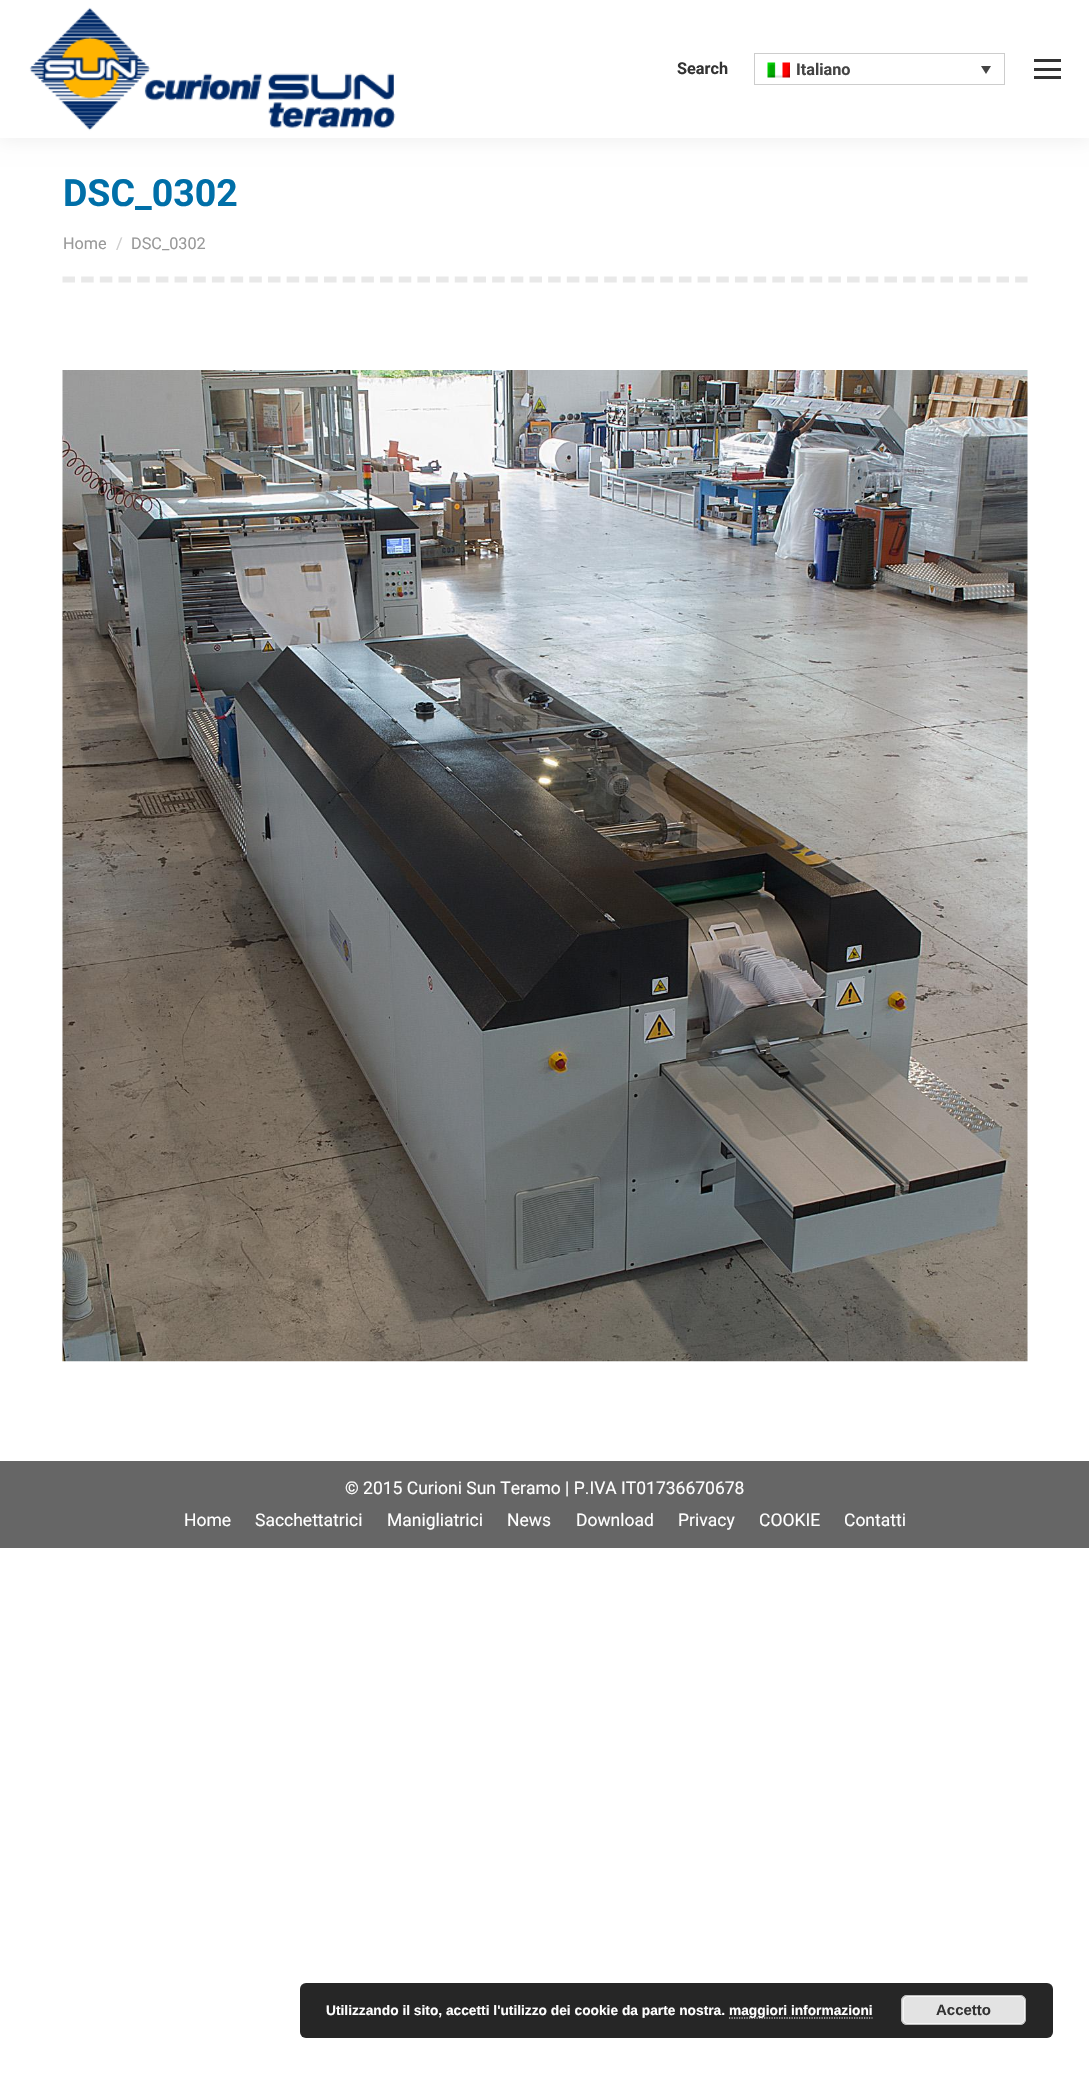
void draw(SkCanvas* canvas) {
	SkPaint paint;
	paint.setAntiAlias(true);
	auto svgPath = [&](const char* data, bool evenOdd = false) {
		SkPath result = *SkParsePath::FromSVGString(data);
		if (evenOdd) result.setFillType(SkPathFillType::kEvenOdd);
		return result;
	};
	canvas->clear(0xffffffff);
	paint.setColor(0x12000000);
	paint.setMaskFilter(SkMaskFilter::MakeBlur(kNormal_SkBlurStyle, 9.5));
	canvas->drawRect(SkRect::MakeXYWH(-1, -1, 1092, 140), paint);
	paint.setMaskFilter(nullptr);
	paint.setColor(0xffffffff);
	canvas->drawRect(SkRect::MakeXYWH(0, 0, 1089, 138), paint);
	canvas->drawImageRect(SkImages::DeferredFromEncodedData(SkData::MakeFromFileName("img1.png")), SkRect::MakeXYWH(29, 7, 367, 124), SkSamplingOptions());
	SkFont f1(fontMgr->matchFamilyStyle("Roboto", SkFontStyle::Bold()), 16.25);
	f1.setSubpixel(true);
	paint.setColor(0xff333333);
	canvas->drawString("Search", 677, 74, f1, paint);
	paint.setStroke(true);
	paint.setStrokeWidth(1);
	paint.setColor(0xffcdcdcd);
	canvas->drawRect(SkRect::MakeXYWH(754.5, 53.5, 250, 31), paint);
	canvas->drawImageRect(SkImages::DeferredFromEncodedData(SkData::MakeFromFileName("img2.png")), SkRect::MakeXYWH(767, 62, 23, 16), SkSamplingOptions());
	paint.setStroke(false);
	paint.setColor(0xff444444);
	canvas->drawString("Italiano", 796, 75, f1, paint);
	canvas->drawPath(svgPath("M981 66H991L986 74Z"), paint);
	paint.setColor(0xff333333);
	canvas->drawRect(SkRect::MakeXYWH(1034, 59, 27, 3), paint);
	canvas->drawRect(SkRect::MakeXYWH(1034, 68, 27, 3), paint);
	canvas->drawRect(SkRect::MakeXYWH(1034, 76, 27, 3), paint);
	SkFont f2(fontMgr->matchFamilyStyle("Roboto", SkFontStyle::Bold()), 37.5);
	f2.setSubpixel(true);
	paint.setColor(0xff006fa8);
	canvas->drawString("DSC_0302", 63, 206, f2, paint);
	SkFont f3(fontMgr->matchFamilyStyle("Roboto", SkFontStyle::Normal()), 16.25);
	f3.setSubpixel(true);
	paint.setColor(0xff999999);
	canvas->drawString("Home", 63, 249, f3, paint);
	paint.setColor(0xffcccccc);
	canvas->drawString("/", 116, 249, f3, paint);
	paint.setColor(0xff999999);
	canvas->drawString("DSC_0302", 131, 249, f3, paint);
	paint.setStroke(true);
	paint.setStrokeWidth(6.2);
	paint.setColor(0xffe9e9e9);
	paint.setPathEffect(SkDashPathEffect::Make({{12.5f, 6.18f}}, 0));
	canvas->drawPath(svgPath("M62.5 279.5H1027.5"), paint);
	paint.setPathEffect(nullptr);
	canvas->drawImageRect(SkImages::DeferredFromEncodedData(SkData::MakeFromFileName("img3.png")), SkRect::MakeXYWH(62, 370, 966, 992), SkSamplingOptions());
	paint.setStroke(false);
	paint.setColor(0xff666666);
	canvas->drawRect(SkRect::MakeXYWH(0, 1461, 1089, 87), paint);
	SkFont f4(fontMgr->matchFamilyStyle("Roboto", SkFontStyle::Normal()), 17.5);
	f4.setSubpixel(true);
	paint.setColor(0xffffffff);
	canvas->drawString("© 2015 Curioni Sun Teramo | P.IVA IT01736670678", 345, 1494, f4, paint);
	canvas->drawString("Home", 184, 1526, f4, paint);
	canvas->drawString("Sacchettatrici", 255, 1526, f4, paint);
	canvas->drawString("Manigliatrici", 387, 1526, f4, paint);
	canvas->drawString("News", 507, 1526, f4, paint);
	canvas->drawString("Download", 576, 1526, f4, paint);
	canvas->drawString("Privacy", 678, 1526, f4, paint);
	canvas->drawString("COOKIE", 759, 1526, f4, paint);
	canvas->drawString("Contatti", 844, 1526, f4, paint);
	paint.setColor(0xff262626);
	canvas->drawRoundRect(SkRect::MakeXYWH(300, 1983, 753, 55), 6, 6, paint);
	SkFont f5(fontMgr->matchFamilyStyle("Liberation Sans", SkFontStyle::Bold()), 13.75);
	f5.setSubpixel(true);
	paint.setColor(0xffffffff);
	canvas->drawString("Utilizzando il sito, accetti l'utilizzo dei cookie da parte nostra.", 326, 2015, f5, paint);
	paint.setStroke(true);
	paint.setStrokeWidth(1.2);
	paint.setPathEffect(SkDashPathEffect::Make({{1.25f, 1.25f}}, 0));
	canvas->drawPath(svgPath("M729 2018H872.5"), paint);
	paint.setPathEffect(nullptr);
	paint.setStroke(false);
	canvas->drawString("maggiori informazioni", 729, 2015, f5, paint);
	paint.setColor(0xffe3e3e3);
	canvas->drawRoundRect(SkRect::MakeXYWH(901, 1995, 125, 30), 6, 6, paint);
	paint.setStroke(true);
	paint.setStrokeWidth(1);
	paint.setColor(0xfff6f6f6);
	canvas->drawRoundRect(SkRect::MakeXYWH(903.5, 1996.5, 121, 27), 4.5, 4.5, paint);
	paint.setColor(0xffbbbbbb);
	canvas->drawRoundRect(SkRect::MakeXYWH(901.5, 1995.5, 124, 29), 5.5, 5.5, paint);
	SkFont f6(fontMgr->matchFamilyStyle("Liberation Sans", SkFontStyle::Bold()), 15);
	f6.setSubpixel(true);
	paint.setStroke(false);
	paint.setColor(0xff333333);
	canvas->drawString("Accetto", 936, 2015, f6, paint);
}
